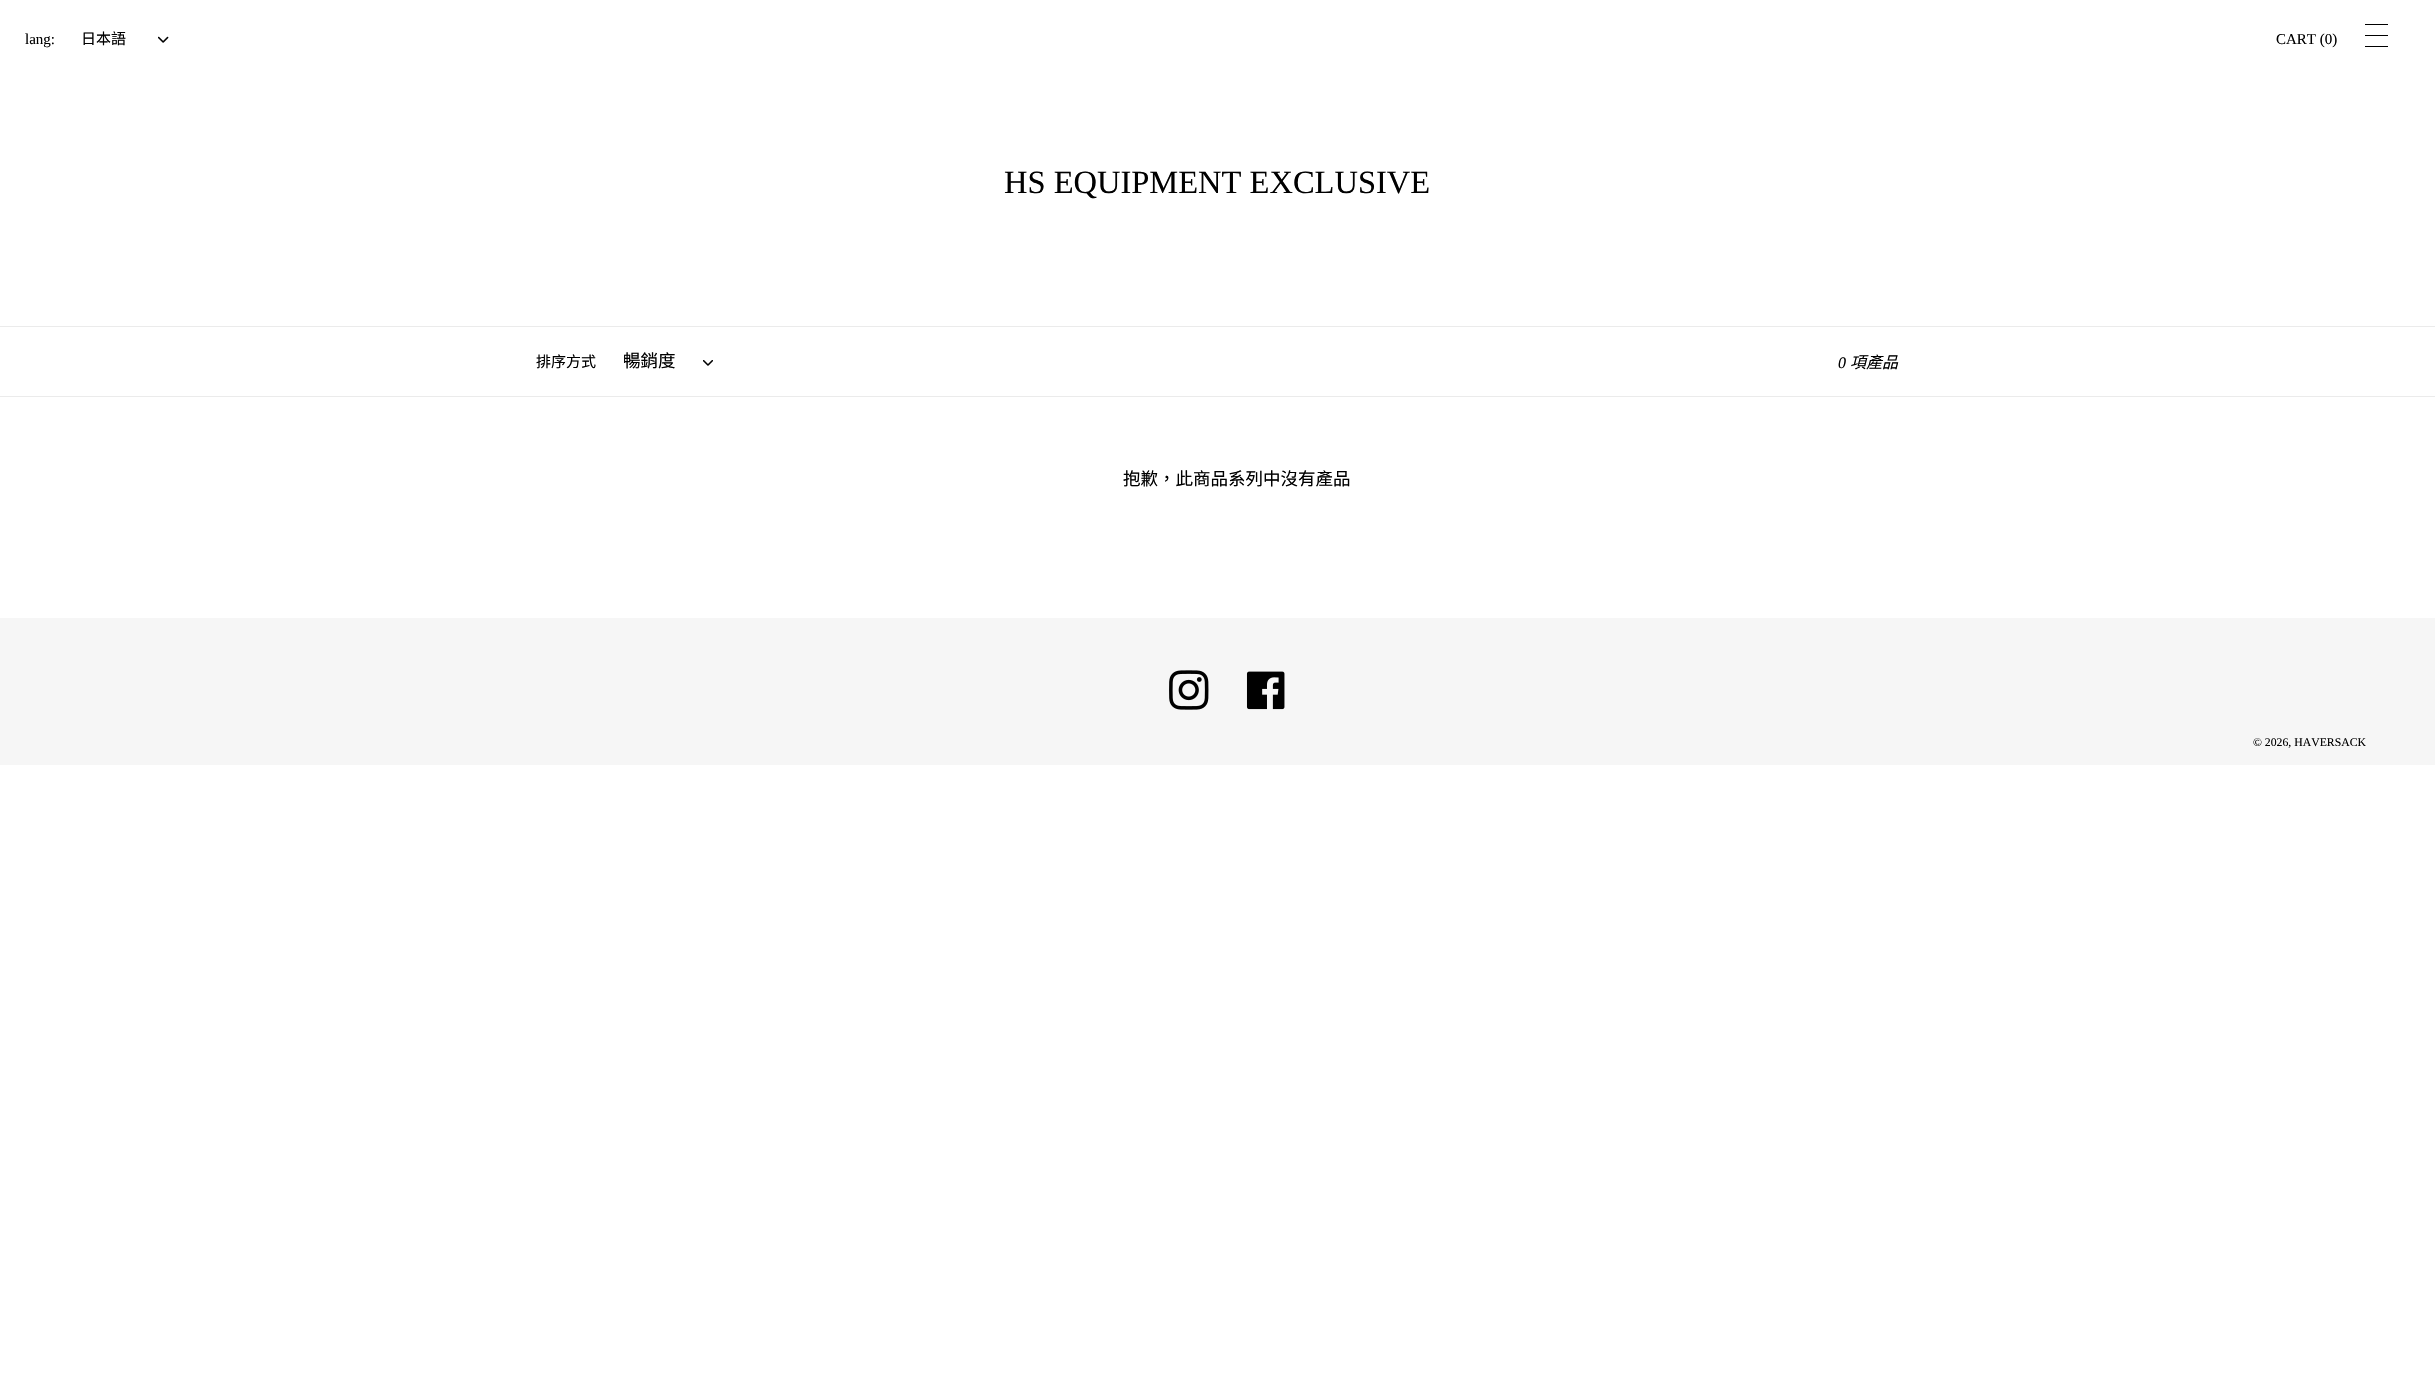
void draw(SkCanvas* canvas) {
	SkPaint paint;
	paint.setAntiAlias(true);
	canvas->clear(0xffffffff);
	SkFont f1(fontMgr->matchFamilyStyle("Liberation Serif", SkFontStyle::Normal()), 15);
	f1.setSubpixel(true);
	paint.setColor(0xff000000);
	canvas->drawString("lang:", 25, 44, f1, paint);
	canvas->drawImageRect(SkImages::DeferredFromEncodedData(SkData::MakeFromFileName("img1.png")), SkRect::MakeXYWH(158, 36, 11, 7), SkSamplingOptions());
	SkFont f2(fontMgr->matchFamilyStyle("Noto Sans CJK TC", SkFontStyle::Normal()), 15);
	f2.setSubpixel(true);
	canvas->drawString("日本語", 81, 44, f2, paint);
	canvas->drawString("CART (0)", 2276, 44, f1, paint);
	canvas->drawRect(SkRect::MakeXYWH(2365, 24, 23, 1), paint);
	canvas->drawRect(SkRect::MakeXYWH(2365, 35, 23, 1), paint);
	canvas->drawRect(SkRect::MakeXYWH(2365, 46, 23, 1), paint);
	SkFont f3(fontMgr->matchFamilyStyle("Liberation Serif", SkFontStyle::Normal()), 32.5);
	f3.setSubpixel(true);
	canvas->drawString("HS EQUIPMENT EXCLUSIVE", 1004, 193, f3, paint);
	paint.setColor(0xffebebeb);
	canvas->drawRect(SkRect::MakeXYWH(0, 326, 2435, 1), paint);
	canvas->drawRect(SkRect::MakeXYWH(0, 396, 2435, 1), paint);
	paint.setColor(0xff000000);
	canvas->drawString("排序方式", 536, 367, f2, paint);
	SkFont f4(fontMgr->matchFamilyStyle("Noto Sans CJK TC", SkFontStyle::Normal()), 17.5);
	f4.setSubpixel(true);
	canvas->drawString("暢銷度", 623, 367, f4, paint);
	canvas->drawImageRect(SkImages::DeferredFromEncodedData(SkData::MakeFromFileName("img2.png")), SkRect::MakeXYWH(703, 360, 10, 6), SkSamplingOptions());
	SkFont f5(fontMgr->matchFamilyStyle("Liberation Serif", SkFontStyle::Italic()), 16);
	f5.setSubpixel(true);
	canvas->drawString("0", 1838, 368, f5, paint);
	SkFont f6(fontMgr->matchFamilyStyle("Noto Sans CJK TC", SkFontStyle::Italic()), 16);
	f6.setSubpixel(true);
	canvas->drawString("項產品", 1850, 368, f6, paint);
	canvas->drawString("抱歉，此商品系列中沒有產品", 1123, 485, f4, paint);
	paint.setColor(0xfff6f6f6);
	canvas->drawRect(SkRect::MakeXYWH(0, 618, 2435, 147), paint);
	canvas->drawImageRect(SkImages::DeferredFromEncodedData(SkData::MakeFromFileName("img3.png")), SkRect::MakeXYWH(1169, 670, 40, 40), SkSamplingOptions());
	canvas->drawImageRect(SkImages::DeferredFromEncodedData(SkData::MakeFromFileName("img4.png")), SkRect::MakeXYWH(1246, 671, 39, 39), SkSamplingOptions());
	SkFont f7(fontMgr->matchFamilyStyle("Liberation Serif", SkFontStyle::Normal()), 11.75);
	f7.setSubpixel(true);
	paint.setColor(0xff000000);
	canvas->drawString("© 2026, HAVERSACK", 2253, 746, f7, paint);
}
